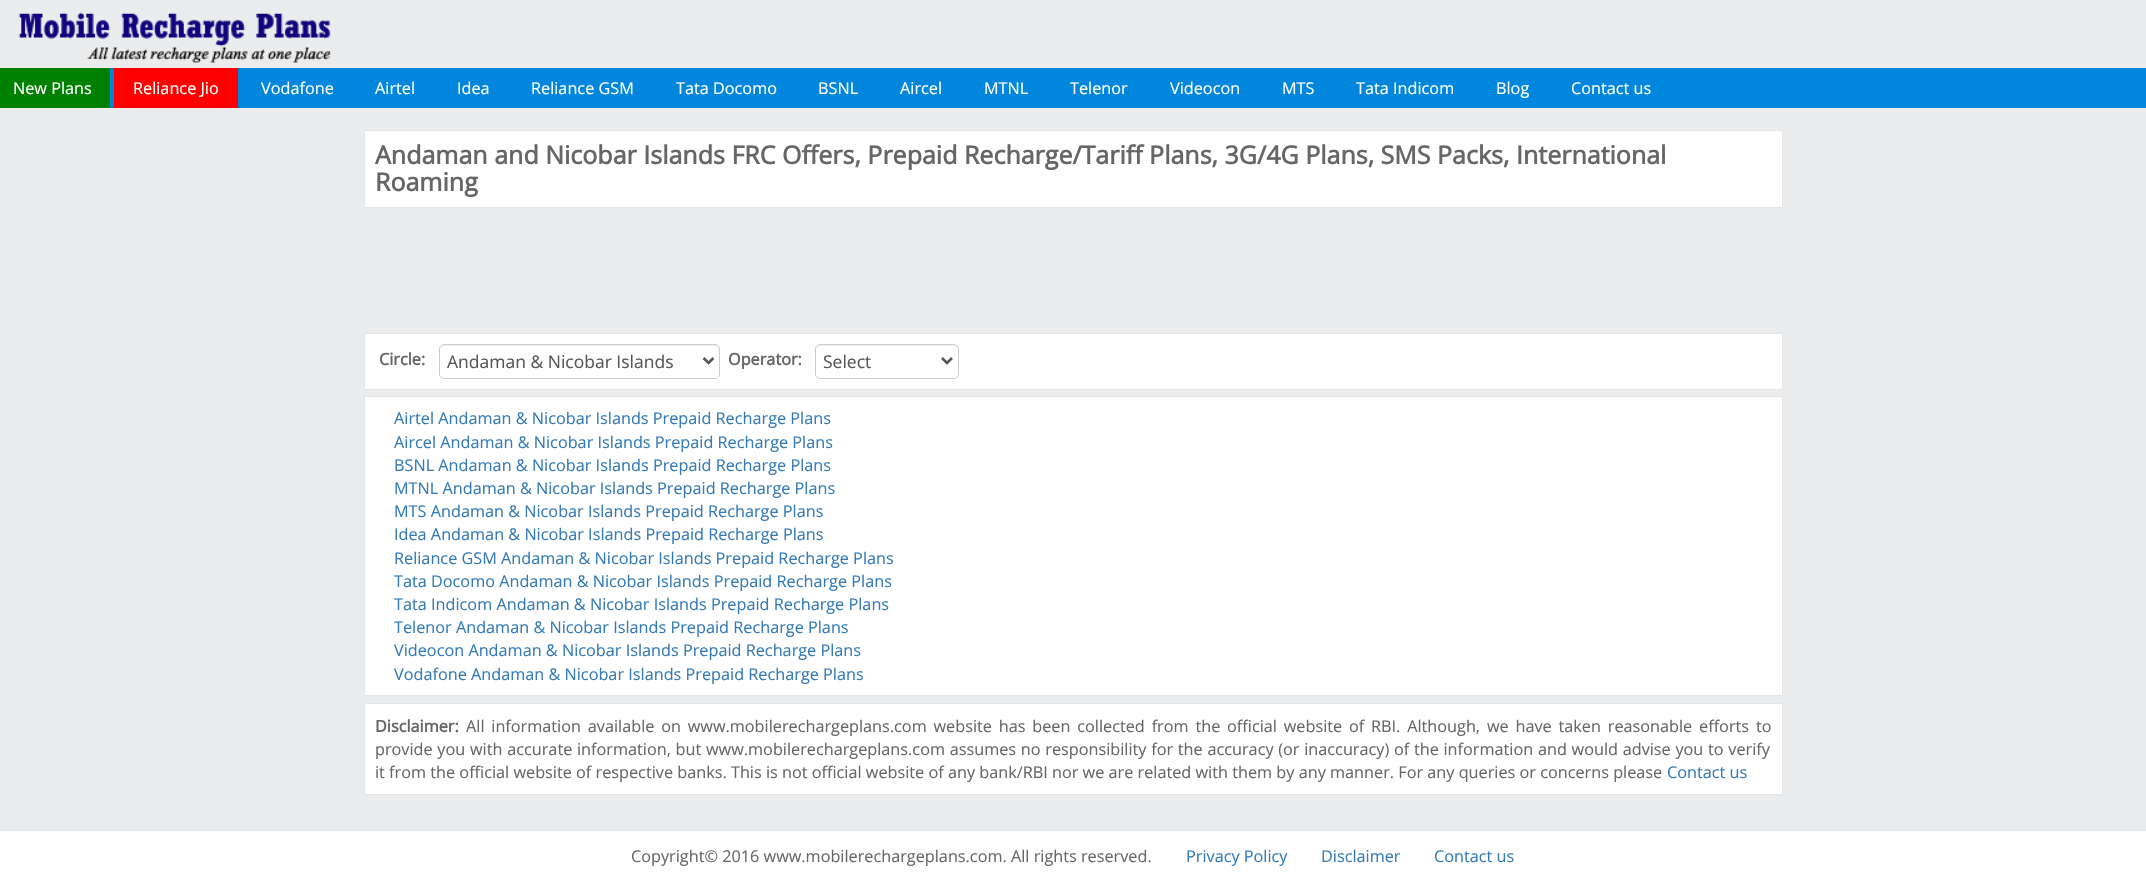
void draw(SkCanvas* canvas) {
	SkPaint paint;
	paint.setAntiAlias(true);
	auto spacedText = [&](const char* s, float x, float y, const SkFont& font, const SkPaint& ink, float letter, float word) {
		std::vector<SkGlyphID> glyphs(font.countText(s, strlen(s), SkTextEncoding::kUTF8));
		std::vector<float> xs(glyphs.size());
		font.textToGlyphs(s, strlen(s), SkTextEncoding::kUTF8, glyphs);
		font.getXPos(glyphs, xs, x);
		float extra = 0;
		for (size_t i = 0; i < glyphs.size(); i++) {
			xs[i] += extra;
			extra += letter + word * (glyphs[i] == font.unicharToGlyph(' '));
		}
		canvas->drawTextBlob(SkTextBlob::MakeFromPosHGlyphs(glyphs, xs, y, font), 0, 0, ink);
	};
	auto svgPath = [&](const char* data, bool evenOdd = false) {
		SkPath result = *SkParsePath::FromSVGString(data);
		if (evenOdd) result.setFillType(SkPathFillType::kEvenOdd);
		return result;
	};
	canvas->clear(0xffebeced);
	canvas->drawImageRect(SkImages::DeferredFromEncodedData(SkData::MakeFromFileName("img1.png")), SkRect::MakeXYWH(18, 12, 313, 51), SkSamplingOptions());
	paint.setColor(0xff0086dc);
	canvas->drawRect(SkRect::MakeXYWH(110, 68, 2036, 40), paint);
	paint.setColor(0xff008000);
	canvas->drawRect(SkRect::MakeXYWH(0, 68, 110, 40), paint);
	SkFont f1(fontMgr->matchFamilyStyle("Open Sans", SkFontStyle::Normal()), 16.25);
	f1.setSubpixel(true);
	paint.setColor(0xffffffff);
	canvas->drawString("New Plans", 13, 94, f1, paint);
	paint.setColor(0xffff0000);
	canvas->drawRect(SkRect::MakeXYWH(114, 68, 124, 40), paint);
	paint.setColor(0xffffffff);
	canvas->drawString("Reliance Jio", 133, 94, f1, paint);
	canvas->drawString("Vodafone", 261, 94, f1, paint);
	canvas->drawString("Airtel", 375, 94, f1, paint);
	canvas->drawString("Idea", 457, 94, f1, paint);
	canvas->drawString("Reliance GSM", 531, 94, f1, paint);
	canvas->drawString("Tata Docomo", 676, 94, f1, paint);
	canvas->drawString("BSNL", 818, 94, f1, paint);
	canvas->drawString("Aircel", 900, 94, f1, paint);
	canvas->drawString("MTNL", 984, 94, f1, paint);
	canvas->drawString("Telenor", 1070, 94, f1, paint);
	canvas->drawString("Videocon", 1170, 94, f1, paint);
	canvas->drawString("MTS", 1282, 94, f1, paint);
	canvas->drawString("Tata Indicom", 1356, 94, f1, paint);
	canvas->drawString("Blog", 1496, 94, f1, paint);
	canvas->drawString("Contact us", 1571, 94, f1, paint);
	canvas->drawRect(SkRect::MakeXYWH(364.5, 130.5, 1418, 77), paint);
	paint.setStroke(true);
	paint.setStrokeWidth(1);
	paint.setColor(0xffe4e5e7);
	canvas->drawRect(SkRect::MakeXYWH(364.5, 130.5, 1418, 77), paint);
	SkFont f2(fontMgr->matchFamilyStyle("Open Sans", SkFontStyle::Bold()), 25);
	f2.setSubpixel(true);
	paint.setStroke(false);
	paint.setColor(0xff666666);
	canvas->drawString("Andaman and Nicobar Islands FRC Offers, Prepaid Recharge/Tariff Plans, 3G/4G Plans, SMS Packs, International", 375, 164, f2, paint);
	canvas->drawString("Roaming", 375, 191, f2, paint);
	paint.setColor(0xffffffff);
	canvas->drawRect(SkRect::MakeXYWH(364.5, 333.5, 1418, 56), paint);
	paint.setStroke(true);
	paint.setColor(0xffe4e5e7);
	canvas->drawRect(SkRect::MakeXYWH(364.5, 333.5, 1418, 56), paint);
	SkFont f3(fontMgr->matchFamilyStyle("Open Sans", SkFontStyle::Bold()), 16.25);
	f3.setSubpixel(true);
	paint.setStroke(false);
	paint.setColor(0xff666666);
	canvas->drawString("Circle:", 379, 365, f3, paint);
	paint.setColor(0xffececec);
	canvas->drawPath(svgPath("M444 346H715C717 346 719 348 719 350C719 347 718 345 715 345H444C441 345 440 347 440 350C440 348 442 346 444 346Z"), paint);
	paint.setStroke(true);
	paint.setColor(0xffcccccc);
	canvas->drawRoundRect(SkRect::MakeXYWH(439.5, 344.5, 280, 34), 4.5, 4.5, paint);
	paint.setStrokeWidth(2.5);
	paint.setColor(0xff555555);
	canvas->drawPath(svgPath("M703.5 358L708.5 363L713.5 358"), paint);
	SkFont f4(fontMgr->matchFamilyStyle("Open Sans", SkFontStyle::Normal()), 17.5);
	f4.setSubpixel(true);
	paint.setStroke(false);
	canvas->drawString("Andaman & Nicobar Islands", 447, 368, f4, paint);
	paint.setColor(0xff666666);
	canvas->drawString("Operator:", 728, 365, f3, paint);
	paint.setColor(0xffececec);
	canvas->drawPath(svgPath("M820 346H954C956 346 958 348 958 350V349C958 347 956 345 954 345H820C818 345 816 347 816 349V350C816 348 818 346 820 346Z"), paint);
	paint.setStroke(true);
	paint.setStrokeWidth(1);
	paint.setColor(0xffcccccc);
	canvas->drawRoundRect(SkRect::MakeXYWH(815.5, 344.5, 143, 34), 4.5, 4.5, paint);
	paint.setStrokeWidth(2.5);
	paint.setColor(0xff555555);
	canvas->drawPath(svgPath("M942 358L947 363L952 358"), paint);
	paint.setStroke(false);
	canvas->drawString("Select", 823, 368, f4, paint);
	paint.setColor(0xffffffff);
	canvas->drawRect(SkRect::MakeXYWH(364.5, 396.5, 1418, 299), paint);
	paint.setStroke(true);
	paint.setStrokeWidth(1);
	paint.setColor(0xffe4e5e7);
	canvas->drawRect(SkRect::MakeXYWH(364.5, 396.5, 1418, 299), paint);
	paint.setStroke(false);
	paint.setColor(0xff337ab7);
	canvas->drawString("Airtel Andaman & Nicobar Islands Prepaid Recharge Plans", 394, 424, f1, paint);
	canvas->drawString("Aircel Andaman & Nicobar Islands Prepaid Recharge Plans", 394, 448, f1, paint);
	canvas->drawString("BSNL Andaman & Nicobar Islands Prepaid Recharge Plans", 394, 471, f1, paint);
	canvas->drawString("MTNL Andaman & Nicobar Islands Prepaid Recharge Plans", 394, 494, f1, paint);
	canvas->drawString("MTS Andaman & Nicobar Islands Prepaid Recharge Plans", 394, 517, f1, paint);
	canvas->drawString("Idea Andaman & Nicobar Islands Prepaid Recharge Plans", 394, 540, f1, paint);
	canvas->drawString("Reliance GSM Andaman & Nicobar Islands Prepaid Recharge Plans", 394, 564, f1, paint);
	canvas->drawString("Tata Docomo Andaman & Nicobar Islands Prepaid Recharge Plans", 394, 587, f1, paint);
	canvas->drawString("Tata Indicom Andaman & Nicobar Islands Prepaid Recharge Plans", 394, 610, f1, paint);
	canvas->drawString("Telenor Andaman & Nicobar Islands Prepaid Recharge Plans", 394, 633, f1, paint);
	canvas->drawString("Videocon Andaman & Nicobar Islands Prepaid Recharge Plans", 394, 656, f1, paint);
	canvas->drawString("Vodafone Andaman & Nicobar Islands Prepaid Recharge Plans", 394, 680, f1, paint);
	paint.setColor(0xffffffff);
	canvas->drawRect(SkRect::MakeXYWH(364.5, 703.5, 1418, 91), paint);
	paint.setStroke(true);
	paint.setColor(0xffe4e5e7);
	canvas->drawRect(SkRect::MakeXYWH(364.5, 703.5, 1418, 91), paint);
	paint.setStroke(false);
	paint.setColor(0xff666666);
	canvas->drawString("Disclaimer:", 375, 732, f3, paint);
	spacedText("All information available on www.mobilerechargeplans.com website has been collected from the official website of RBI. Although, we have taken reasonable efforts to", 466, 732, f1, paint, 0, 2.6);
	spacedText("provide you with accurate information, but www.mobilerechargeplans.com assumes no responsibility for the accuracy (or inaccuracy) of the information and would advise you to verify", 375, 755, f1, paint, 0, 0.5);
	canvas->drawString("it from the official website of respective banks. This is not official website of any bank/RBI nor we are related with them by any manner. For any queries or concerns please", 375, 778, f1, paint);
	paint.setColor(0xff337ab7);
	canvas->drawString("Contact us", 1667, 778, f1, paint);
	paint.setColor(0xffffffff);
	canvas->drawRect(SkRect::MakeXYWH(0, 831, 2146, 48), paint);
	paint.setColor(0xffe4e5e7);
	canvas->drawRect(SkRect::MakeXYWH(0, 830, 2146, 1), paint);
	paint.setColor(0xff666666);
	canvas->drawString("Copyright© 2016 www.mobilerechargeplans.com. All rights reserved.", 631, 862, f1, paint);
	paint.setColor(0xff337ab7);
	canvas->drawString("Privacy Policy", 1186, 862, f1, paint);
	canvas->drawString("Disclaimer", 1321, 862, f1, paint);
	canvas->drawString("Contact us", 1434, 862, f1, paint);
}
